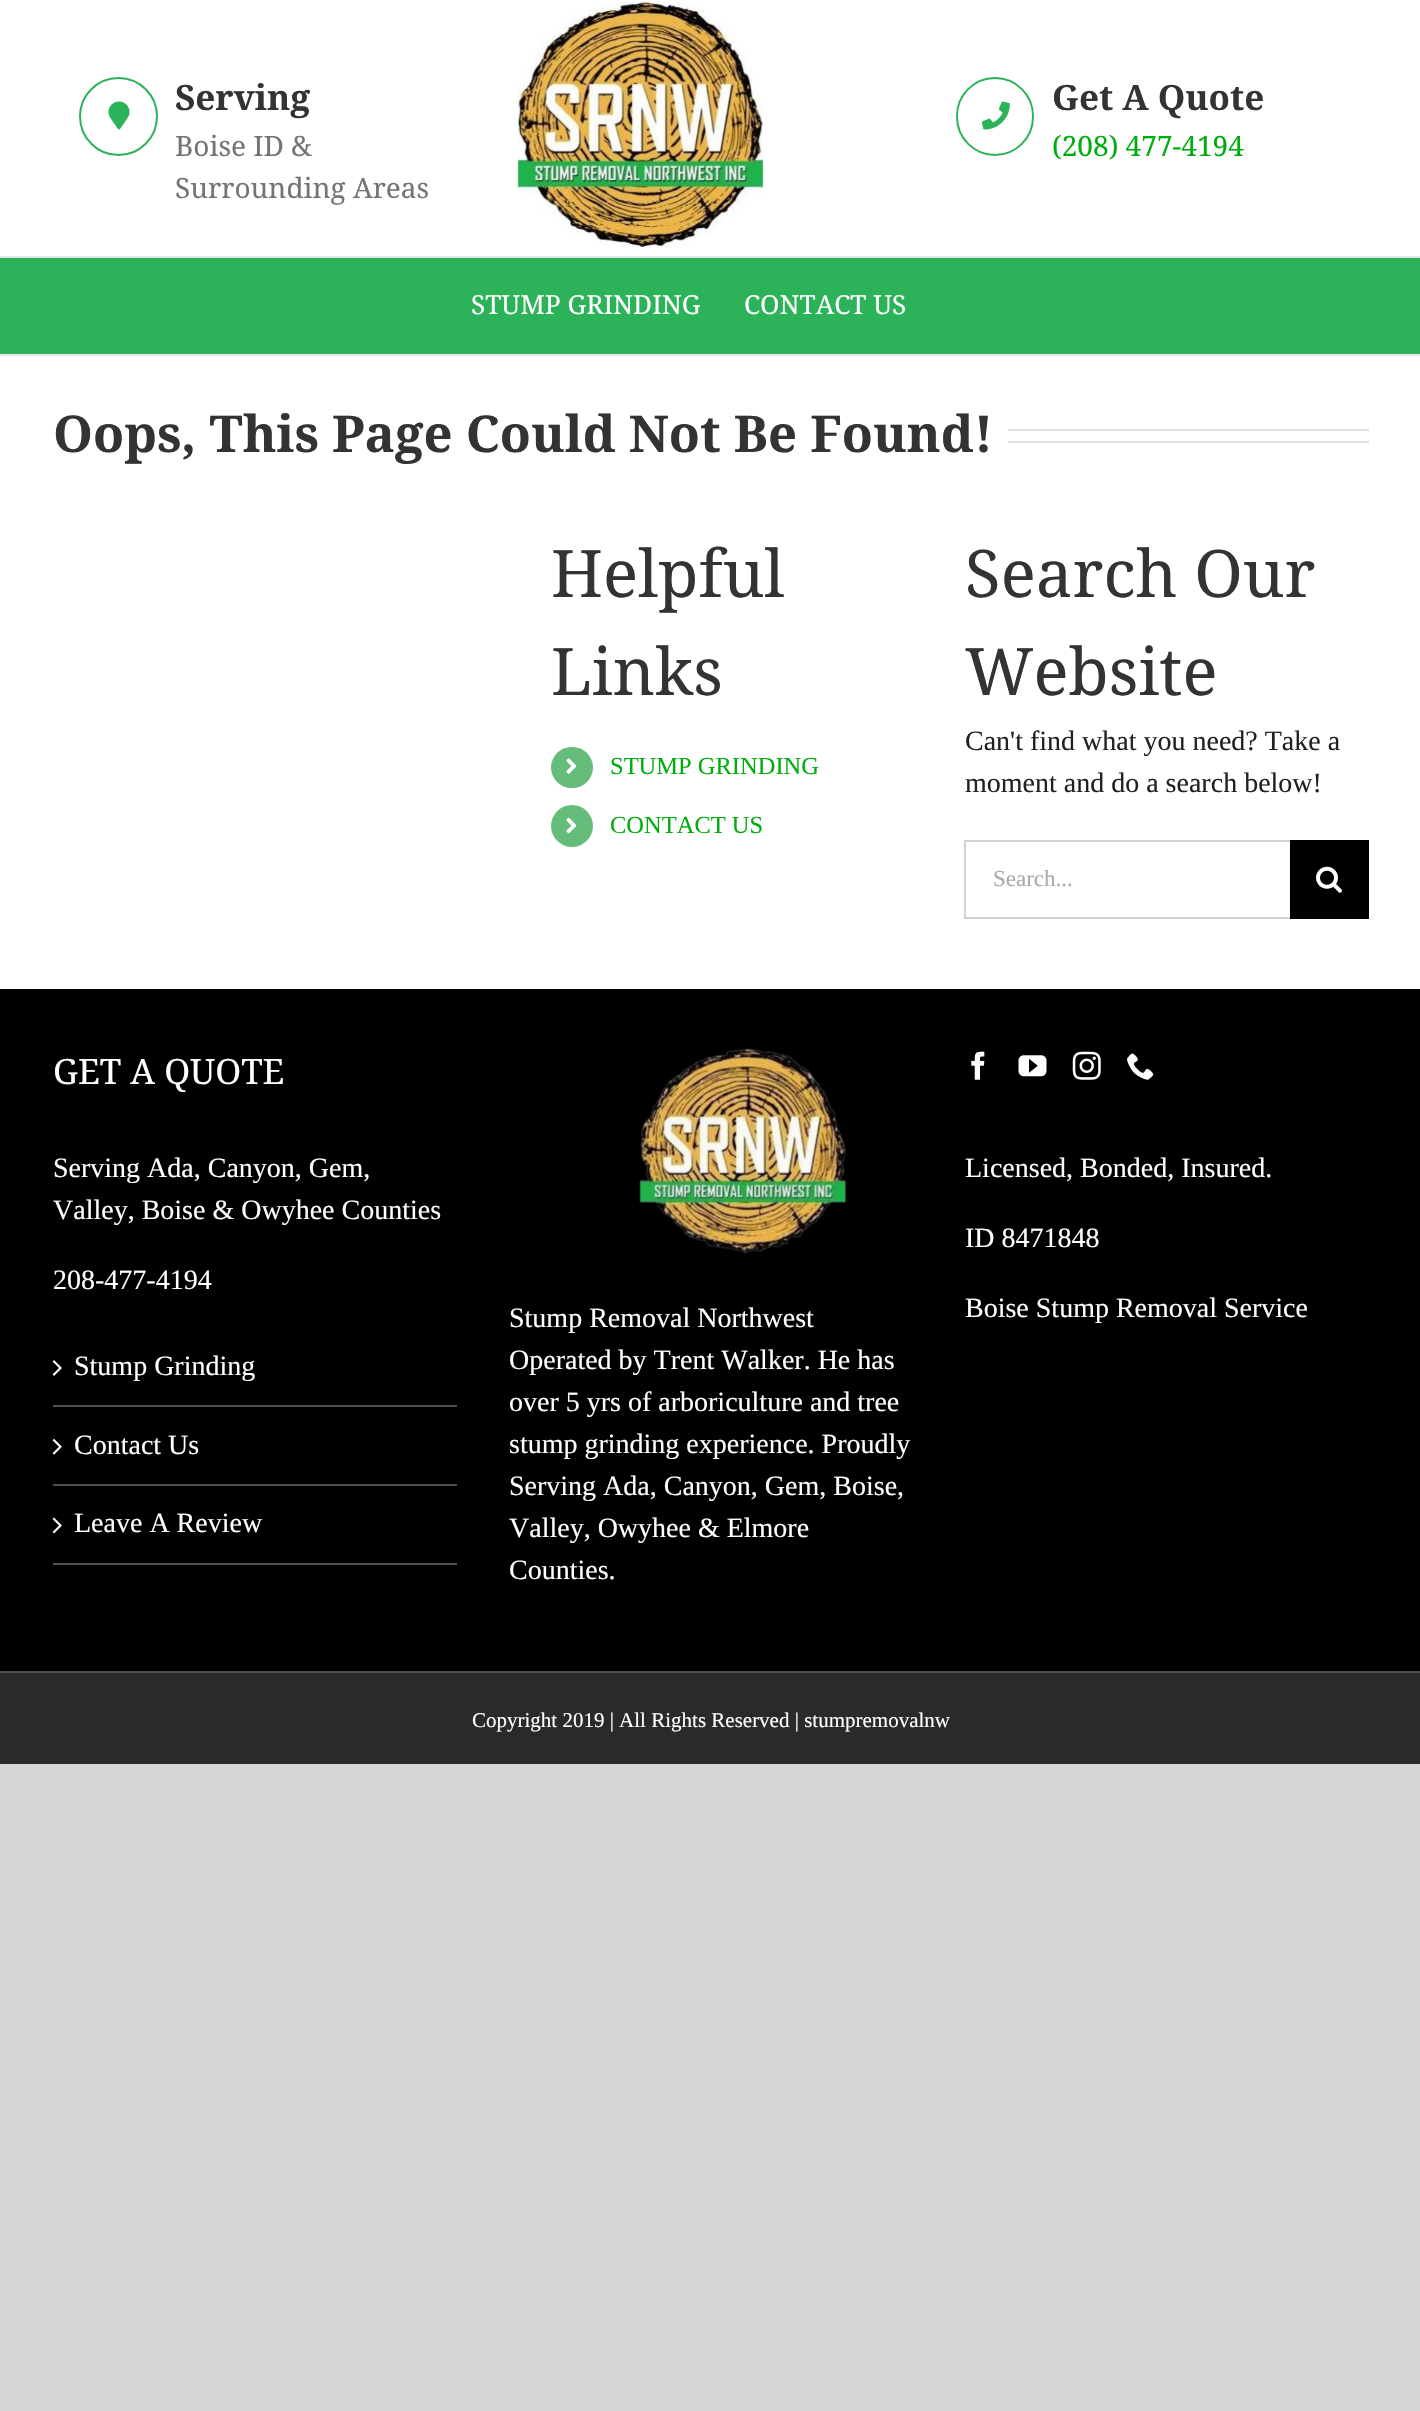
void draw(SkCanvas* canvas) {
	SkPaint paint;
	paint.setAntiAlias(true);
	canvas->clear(0xffd7d6d6);
	paint.setColor(0xffffffff);
	canvas->drawRect(SkRect::MakeXYWH(0, 0, 1420, 989), paint);
	paint.setColor(0xffe5e5e5);
	canvas->drawRect(SkRect::MakeXYWH(0, 256, 1420, 2), paint);
	paint.setStroke(true);
	paint.setStrokeWidth(2);
	paint.setColor(0xff2cb359);
	canvas->drawCircle(118.5, 116.5, 38.5, paint);
	canvas->drawImageRect(SkImages::DeferredFromEncodedData(SkData::MakeFromFileName("img1.png")), SkRect::MakeXYWH(108, 101, 22, 29), SkSamplingOptions());
	SkFont f1(fontMgr->matchFamilyStyle("Noto Serif", SkFontStyle::Bold()), 35);
	f1.setSubpixel(true);
	paint.setStroke(false);
	paint.setColor(0xff333333);
	canvas->drawString("Serving", 175, 110, f1, paint);
	SkFont f2(fontMgr->matchFamilyStyle("Noto Serif", SkFontStyle::Normal()), 28);
	f2.setSubpixel(true);
	paint.setColor(0xff747474);
	canvas->drawString("Boise ID &", 175, 156, f2, paint);
	canvas->drawString("Surrounding Areas", 175, 198, f2, paint);
	canvas->drawImageRect(SkImages::DeferredFromEncodedData(SkData::MakeFromFileName("img2.png")), SkRect::MakeXYWH(517, 1, 246, 246), SkSamplingOptions());
	paint.setStroke(true);
	paint.setColor(0xff2cb359);
	canvas->drawRoundRect(SkRect::MakeXYWH(957, 78, 76, 77), 38, 38, paint);
	canvas->drawImageRect(SkImages::DeferredFromEncodedData(SkData::MakeFromFileName("img3.png")), SkRect::MakeXYWH(981, 101, 29, 29), SkSamplingOptions());
	paint.setStroke(false);
	paint.setColor(0xff333333);
	canvas->drawString("Get A Quote", 1052, 110, f1, paint);
	paint.setColor(0xff00ad0e);
	canvas->drawString("(208) 477-4194", 1052, 156, f2, paint);
	paint.setColor(0xff2cb359);
	canvas->drawRect(SkRect::MakeXYWH(0, 258, 1420, 96), paint);
	paint.setColor(0xffe5e5e5);
	canvas->drawRect(SkRect::MakeXYWH(0, 354, 1420, 2), paint);
	SkFont f3(fontMgr->matchFamilyStyle("Noto Serif", SkFontStyle::Normal()), 26.25);
	f3.setSubpixel(true);
	paint.setColor(0xffffffff);
	canvas->drawString("STUMP GRINDING", 471, 314, f3, paint);
	canvas->drawString("CONTACT US", 744, 314, f3, paint);
	SkFont f4(fontMgr->matchFamilyStyle("Noto Serif", SkFontStyle::Bold()), 50.8);
	f4.setSubpixel(true);
	paint.setColor(0xff333333);
	canvas->drawString("Oops, This Page Could Not Be Found!", 53, 452, f4, paint);
	paint.setColor(0xffe0dede);
	canvas->drawRect(SkRect::MakeXYWH(1008, 429, 361, 2), paint);
	canvas->drawRect(SkRect::MakeXYWH(1008, 441, 361, 2), paint);
	SkFont f5(fontMgr->matchFamilyStyle("Noto Serif", SkFontStyle::Normal()), 65.5);
	f5.setSubpixel(true);
	paint.setColor(0xff333333);
	canvas->drawString("Helpful", 551, 597, f5, paint);
	canvas->drawString("Links", 551, 695, f5, paint);
	paint.setColor(0xff65bc7b);
	canvas->drawRoundRect(SkRect::MakeXYWH(551, 747, 42, 41), 20.5, 20.5, paint);
	canvas->drawImageRect(SkImages::DeferredFromEncodedData(SkData::MakeFromFileName("img4.png")), SkRect::MakeXYWH(566, 758, 11, 16), SkSamplingOptions());
	SkFont f6(fontMgr->matchFamilyStyle("Liberation Serif", SkFontStyle::Normal()), 24.5);
	f6.setSubpixel(true);
	paint.setColor(0xff00ad0e);
	canvas->drawString("STUMP GRINDING", 610, 774, f6, paint);
	paint.setColor(0xff65bc7b);
	canvas->drawCircle(572, 826, 21, paint);
	canvas->drawImageRect(SkImages::DeferredFromEncodedData(SkData::MakeFromFileName("img5.png")), SkRect::MakeXYWH(566, 817, 11, 17), SkSamplingOptions());
	paint.setColor(0xff00ad0e);
	canvas->drawString("CONTACT US", 610, 833, f6, paint);
	paint.setColor(0xff333333);
	canvas->drawString("Search Our", 965, 597, f5, paint);
	canvas->drawString("Website", 965, 695, f5, paint);
	SkFont f7(fontMgr->matchFamilyStyle("Liberation Serif", SkFontStyle::Normal()), 28);
	f7.setSubpixel(true);
	paint.setColor(0xff212121);
	canvas->drawString("Can't find what you need? Take a", 965, 750, f7, paint);
	canvas->drawString("moment and do a search below!", 965, 792, f7, paint);
	paint.setColor(0xffd2d2d2);
	canvas->drawRect(SkRect::MakeXYWH(964, 840, 326, 2), paint);
	canvas->drawRect(SkRect::MakeXYWH(964, 917, 326, 2), paint);
	canvas->drawRect(SkRect::MakeXYWH(964, 840, 2, 79), paint);
	SkFont f8(fontMgr->matchFamilyStyle("Liberation Serif", SkFontStyle::Normal()), 23);
	f8.setSubpixel(true);
	paint.setColor(0xffaaa9a9);
	canvas->drawString("Search...", 993, 886, f8, paint);
	paint.setColor(0xff000000);
	canvas->drawRect(SkRect::MakeXYWH(1290, 840, 79, 79), paint);
	canvas->drawImageRect(SkImages::DeferredFromEncodedData(SkData::MakeFromFileName("img6.png")), SkRect::MakeXYWH(1316, 866, 26, 27), SkSamplingOptions());
	canvas->drawRect(SkRect::MakeXYWH(0, 989, 1420, 682), paint);
	SkFont f9(fontMgr->matchFamilyStyle("Noto Serif", SkFontStyle::Normal()), 35);
	f9.setSubpixel(true);
	paint.setColor(0xffffffff);
	canvas->drawString("GET A QUOTE", 53, 1084, f9, paint);
	canvas->drawString("Serving Ada, Canyon, Gem,", 53, 1177, f7, paint);
	canvas->drawString("Valley, Boise & Owyhee Counties", 53, 1219, f7, paint);
	canvas->drawString("208-477-4194", 53, 1289, f7, paint);
	paint.setColor(0xff505152);
	canvas->drawRect(SkRect::MakeXYWH(53, 1405, 404, 2), paint);
	canvas->drawImageRect(SkImages::DeferredFromEncodedData(SkData::MakeFromFileName("img7.png")), SkRect::MakeXYWH(52, 1360, 10, 16), SkSamplingOptions());
	paint.setColor(0xffffffff);
	canvas->drawString("Stump Grinding", 74, 1375, f7, paint);
	paint.setColor(0xff505152);
	canvas->drawRect(SkRect::MakeXYWH(53, 1484, 404, 2), paint);
	canvas->drawImageRect(SkImages::DeferredFromEncodedData(SkData::MakeFromFileName("img8.png")), SkRect::MakeXYWH(52, 1439, 10, 16), SkSamplingOptions());
	paint.setColor(0xffffffff);
	canvas->drawString("Contact Us", 74, 1454, f7, paint);
	paint.setColor(0xff505152);
	canvas->drawRect(SkRect::MakeXYWH(53, 1563, 404, 2), paint);
	canvas->drawImageRect(SkImages::DeferredFromEncodedData(SkData::MakeFromFileName("img9.png")), SkRect::MakeXYWH(52, 1517, 10, 17), SkSamplingOptions());
	paint.setColor(0xffffffff);
	canvas->drawString("Leave A Review", 74, 1532, f7, paint);
	canvas->drawImageRect(SkImages::DeferredFromEncodedData(SkData::MakeFromFileName("img10.png")), SkRect::MakeXYWH(971, 1051, 14, 29), SkSamplingOptions());
	canvas->drawImageRect(SkImages::DeferredFromEncodedData(SkData::MakeFromFileName("img11.png")), SkRect::MakeXYWH(1018, 1055, 29, 22), SkSamplingOptions());
	canvas->drawImageRect(SkImages::DeferredFromEncodedData(SkData::MakeFromFileName("img12.png")), SkRect::MakeXYWH(1072, 1051, 29, 29), SkSamplingOptions());
	canvas->drawImageRect(SkImages::DeferredFromEncodedData(SkData::MakeFromFileName("img13.png")), SkRect::MakeXYWH(1127, 1053, 27, 27), SkSamplingOptions());
	canvas->drawString("Licensed, Bonded, Insured.", 965, 1177, f7, paint);
	canvas->drawString("ID 8471848", 965, 1247, f7, paint);
	canvas->drawString("Boise Stump Removal Service", 965, 1317, f7, paint);
	canvas->drawImageRect(SkImages::DeferredFromEncodedData(SkData::MakeFromFileName("img14.png")), SkRect::MakeXYWH(639, 1048, 207, 206), SkSamplingOptions());
	canvas->drawString("Stump Removal Northwest", 509, 1327, f7, paint);
	canvas->drawString("Operated by Trent Walker. He has", 509, 1369, f7, paint);
	canvas->drawString("over 5 yrs of arboriculture and tree", 509, 1411, f7, paint);
	canvas->drawString("stump grinding experience. Proudly", 509, 1453, f7, paint);
	canvas->drawString("Serving Ada, Canyon, Gem, Boise,", 509, 1495, f7, paint);
	canvas->drawString("Valley, Owyhee & Elmore", 509, 1537, f7, paint);
	canvas->drawString("Counties.", 509, 1579, f7, paint);
	paint.setColor(0xff282a2b);
	canvas->drawRect(SkRect::MakeXYWH(0, 1673, 1420, 91), paint);
	paint.setColor(0xff4b4c4d);
	canvas->drawRect(SkRect::MakeXYWH(0, 1671, 1420, 2), paint);
	SkFont f10(fontMgr->matchFamilyStyle("Liberation Serif", SkFontStyle::Normal()), 21);
	f10.setSubpixel(true);
	paint.setColor(0xffffffff);
	canvas->drawString("Copyright 2019 | All Rights Reserved | stumpremovalnw", 472, 1727, f10, paint);
}
